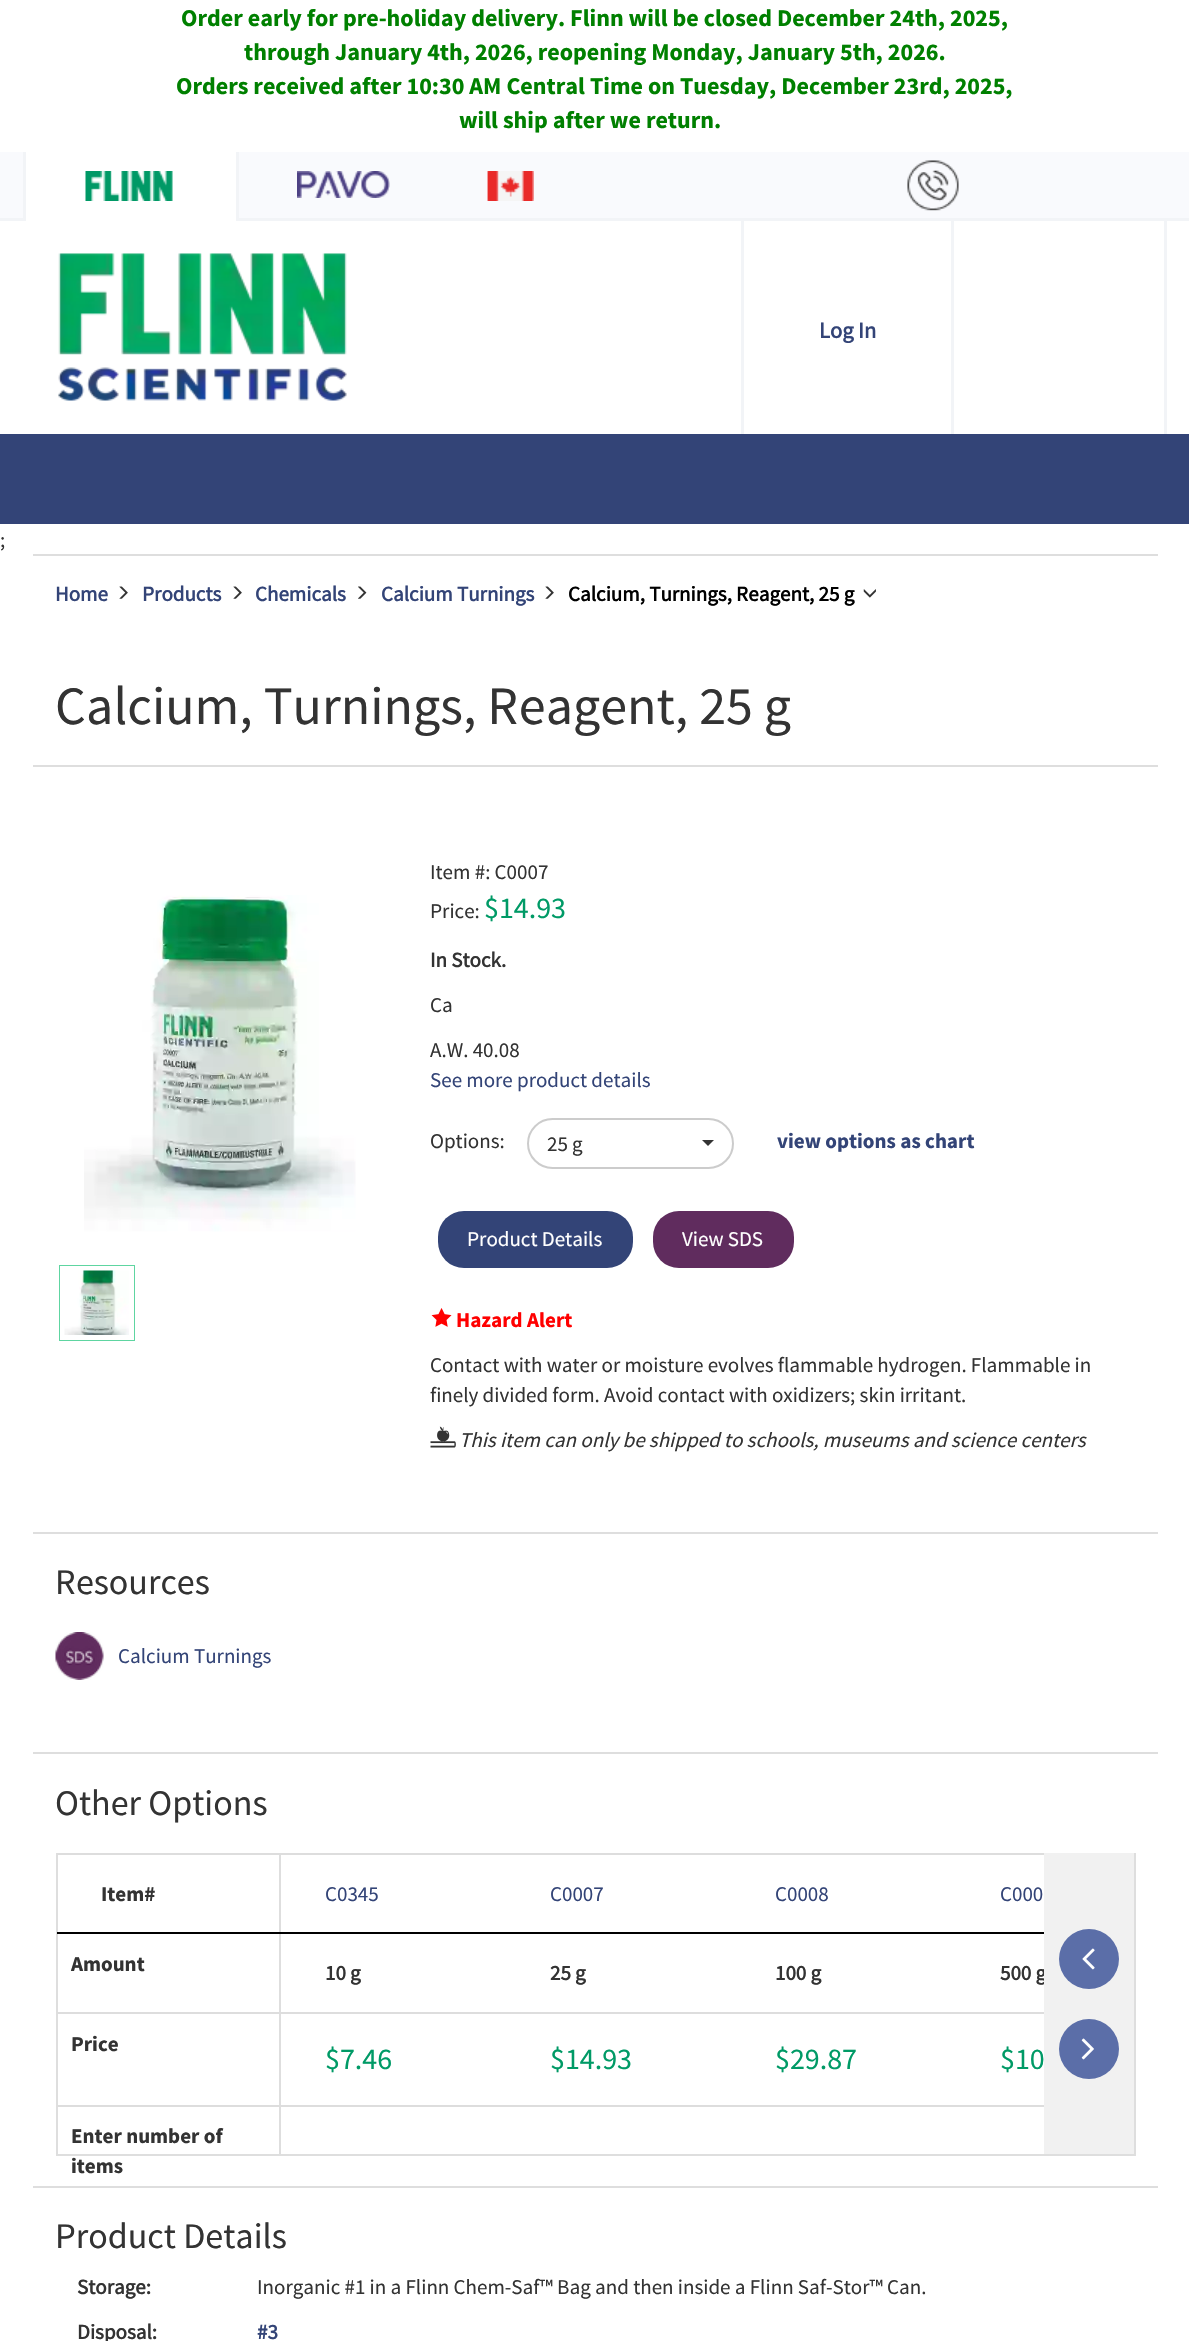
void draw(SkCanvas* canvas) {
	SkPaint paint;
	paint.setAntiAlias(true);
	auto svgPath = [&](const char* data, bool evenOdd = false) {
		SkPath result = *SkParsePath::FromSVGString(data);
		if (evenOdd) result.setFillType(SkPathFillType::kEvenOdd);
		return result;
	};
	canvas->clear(0xffffffff);
	SkFont f1(fontMgr->matchFamilyStyle("Source Sans Pro", SkFontStyle::Bold()), 24);
	f1.setSubpixel(true);
	paint.setColor(0xff008000);
	canvas->drawString("Order early for pre-holiday delivery. Flinn will be closed December 24th, 2025,", 181, 26, f1, paint);
	canvas->drawString("through January 4th, 2026, reopening Monday, January 5th, 2026.", 244, 60, f1, paint);
	canvas->drawString("Orders received after 10:30 AM Central Time on Tuesday, December 23rd, 2025,", 176, 94, f1, paint);
	canvas->drawString("will ship after we return.", 459, 128, f1, paint);
	paint.setColor(0xfff9fafd);
	canvas->drawRect(SkRect::MakeXYWH(0, 152, 1189, 66), paint);
	paint.setColor(0xfff2f4f7);
	canvas->drawRect(SkRect::MakeXYWH(0, 218, 1189, 3), paint);
	paint.setColor(0xffffffff);
	canvas->drawRect(SkRect::MakeXYWH(26, 152, 210, 69), paint);
	paint.setColor(0xfff2f4f7);
	canvas->drawRect(SkRect::MakeXYWH(236, 152, 3, 69), paint);
	canvas->drawRect(SkRect::MakeXYWH(23, 152, 3, 69), paint);
	canvas->drawImageRect(SkImages::DeferredFromEncodedData(SkData::MakeFromFileName("img1.png")), SkRect::MakeXYWH(85, 171, 88, 30), SkSamplingOptions());
	canvas->drawImageRect(SkImages::DeferredFromEncodedData(SkData::MakeFromFileName("img2.png")), SkRect::MakeXYWH(297, 171, 93, 27), SkSamplingOptions());
	canvas->drawImageRect(SkImages::DeferredFromEncodedData(SkData::MakeFromFileName("img3.png")), SkRect::MakeXYWH(487, 171, 47, 30), SkSamplingOptions());
	canvas->drawImageRect(SkImages::DeferredFromEncodedData(SkData::MakeFromFileName("img4.png")), SkRect::MakeXYWH(907, 160, 52, 51), SkSamplingOptions());
	canvas->drawImageRect(SkImages::DeferredFromEncodedData(SkData::MakeFromFileName("img5.png")), SkRect::MakeXYWH(58, 253, 289, 148), SkSamplingOptions());
	canvas->drawRect(SkRect::MakeXYWH(951, 221, 3, 213), paint);
	canvas->drawRect(SkRect::MakeXYWH(741, 221, 3, 213), paint);
	SkFont f2(fontMgr->matchFamilyStyle("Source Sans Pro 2", SkFontStyle::Bold()), 22.5);
	f2.setSubpixel(true);
	paint.setColor(0xff334477);
	canvas->drawString("Log In", 819, 338, f2, paint);
	paint.setColor(0xfff2f4f7);
	canvas->drawRect(SkRect::MakeXYWH(1164, 221, 3, 213), paint);
	paint.setColor(0xff334477);
	canvas->drawRect(SkRect::MakeXYWH(0, 434, 1189, 90), paint);
	SkFont f3(fontMgr->matchFamilyStyle("Source Sans Pro", SkFontStyle::Normal()), 21);
	f3.setSubpixel(true);
	paint.setColor(0xff333333);
	canvas->drawString(";", 0, 547, f3, paint);
	paint.setColor(0xffdedede);
	canvas->drawRect(SkRect::MakeXYWH(33, 554, 1125, 2), paint);
	canvas->drawRect(SkRect::MakeXYWH(33, 765, 1125, 2), paint);
	SkFont f4(fontMgr->matchFamilyStyle("Source Sans Pro 2", SkFontStyle::Bold()), 21);
	f4.setSubpixel(true);
	paint.setColor(0xff334477);
	canvas->drawString("Home", 55, 601, f4, paint);
	canvas->drawImageRect(SkImages::DeferredFromEncodedData(SkData::MakeFromFileName("img6.png")), SkRect::MakeXYWH(119, 586, 9, 13), SkSamplingOptions());
	canvas->drawString("Products", 142, 601, f4, paint);
	canvas->drawImageRect(SkImages::DeferredFromEncodedData(SkData::MakeFromFileName("img6.png")), SkRect::MakeXYWH(233, 586, 9, 13), SkSamplingOptions());
	canvas->drawString("Chemicals", 255, 601, f4, paint);
	canvas->drawImageRect(SkImages::DeferredFromEncodedData(SkData::MakeFromFileName("img7.png")), SkRect::MakeXYWH(358, 586, 9, 13), SkSamplingOptions());
	canvas->drawString("Calcium Turnings", 381, 601, f4, paint);
	canvas->drawImageRect(SkImages::DeferredFromEncodedData(SkData::MakeFromFileName("img6.png")), SkRect::MakeXYWH(545, 586, 9, 13), SkSamplingOptions());
	paint.setColor(0xff000000);
	canvas->drawString("Calcium, Turnings, Reagent, 25 g", 568, 601, f4, paint);
	canvas->drawImageRect(SkImages::DeferredFromEncodedData(SkData::MakeFromFileName("img8.png")), SkRect::MakeXYWH(863, 589, 13, 9), SkSamplingOptions());
	SkFont f5(fontMgr->matchFamilyStyle("Source Sans Pro", SkFontStyle::Normal()), 54);
	f5.setSubpixel(true);
	paint.setColor(0xff333333);
	canvas->drawString("Calcium, Turnings, Reagent, 25 g", 55, 724, f5, paint);
	canvas->drawImageRect(SkImages::DeferredFromEncodedData(SkData::MakeFromFileName("img9.png")), SkRect::MakeXYWH(84, 895, 272, 337), SkSamplingOptions());
	paint.setStroke(true);
	paint.setStrokeWidth(2);
	paint.setColor(0xff5ed5a1);
	canvas->drawRect(SkRect::MakeXYWH(60, 1266, 74, 74), paint);
	paint.setStrokeWidth(5);
	paint.setColor(0xffffffff);
	canvas->drawRect(SkRect::MakeXYWH(62.5, 1268.5, 69, 69), paint);
	canvas->drawImageRect(SkImages::DeferredFromEncodedData(SkData::MakeFromFileName("img10.png")), SkRect::MakeXYWH(64, 1270, 65, 65), SkSamplingOptions());
	paint.setStroke(false);
	paint.setColor(0xff333333);
	canvas->drawString("Item #: C0007", 430, 879, f3, paint);
	canvas->drawString("Price:", 430, 918, f3, paint);
	SkFont f6(fontMgr->matchFamilyStyle("Source Sans Pro", SkFontStyle::Normal()), 30);
	f6.setSubpixel(true);
	paint.setColor(0xff009a66);
	canvas->drawString("$14.93", 484, 918, f6, paint);
	paint.setColor(0xff333333);
	canvas->drawString("In Stock.", 430, 967, f4, paint);
	canvas->drawString("Ca", 430, 1012, f3, paint);
	canvas->drawString("A.W. 40.08", 430, 1057, f3, paint);
	paint.setColor(0xff334477);
	canvas->drawString("See more product details", 430, 1087, f3, paint);
	paint.setColor(0xff333333);
	canvas->drawString("Options:", 430, 1148, f3, paint);
	paint.setStroke(true);
	paint.setStrokeWidth(2);
	paint.setColor(0xffcccccc);
	canvas->drawRoundRect(SkRect::MakeXYWH(528, 1119, 205, 49), 24.5, 24.5, paint);
	paint.setStroke(false);
	paint.setColor(0xff333333);
	canvas->drawString("25 g", 547, 1151, f3, paint);
	canvas->drawPath(svgPath("M702 1140H714L708 1146Z"), paint);
	SkFont f7(fontMgr->matchFamilyStyle("Source Sans Pro", SkFontStyle::Bold()), 21);
	f7.setSubpixel(true);
	paint.setColor(0xff334477);
	canvas->drawString("view options as chart", 777, 1148, f7, paint);
	canvas->drawRoundRect(SkRect::MakeXYWH(438, 1211, 195, 57), 26, 26, paint);
	paint.setColor(0xffffffff);
	canvas->drawString("Product Details", 467, 1246, f3, paint);
	paint.setColor(0xff602c5e);
	canvas->drawRoundRect(SkRect::MakeXYWH(653, 1211, 141, 57), 26, 26, paint);
	paint.setColor(0xffffffff);
	canvas->drawString("View SDS", 682, 1246, f3, paint);
	canvas->drawImageRect(SkImages::DeferredFromEncodedData(SkData::MakeFromFileName("img11.png")), SkRect::MakeXYWH(431, 1308, 21, 19), SkSamplingOptions());
	paint.setColor(0xffff0000);
	canvas->drawString("Hazard Alert", 456, 1327, f7, paint);
	paint.setColor(0xff333333);
	canvas->drawString("Contact with water or moisture evolves flammable hydrogen. Flammable in", 430, 1372, f3, paint);
	canvas->drawString("finely divided form. Avoid contact with oxidizers; skin irritant.", 430, 1402, f3, paint);
	canvas->drawImageRect(SkImages::DeferredFromEncodedData(SkData::MakeFromFileName("img12.png")), SkRect::MakeXYWH(430, 1426, 26, 22), SkSamplingOptions());
	SkFont f8(fontMgr->matchFamilyStyle("Source Sans Pro", SkFontStyle::Italic()), 21);
	f8.setSubpixel(true);
	canvas->drawString("This item can only be shipped to schools, museums and science centers", 459, 1447, f8, paint);
	paint.setColor(0xffdedede);
	canvas->drawRect(SkRect::MakeXYWH(33, 1532, 1125, 2), paint);
	SkFont f9(fontMgr->matchFamilyStyle("Source Sans Pro", SkFontStyle::Normal()), 36);
	f9.setSubpixel(true);
	paint.setColor(0xff333333);
	canvas->drawString("Resources", 55, 1594, f9, paint);
	canvas->drawImageRect(SkImages::DeferredFromEncodedData(SkData::MakeFromFileName("img13.png")), SkRect::MakeXYWH(55, 1632, 49, 48), SkSamplingOptions());
	paint.setColor(0xff334477);
	canvas->drawString("Calcium Turnings", 118, 1663, f3, paint);
	paint.setColor(0xffdedede);
	canvas->drawRect(SkRect::MakeXYWH(33, 1752, 1125, 2), paint);
	paint.setColor(0xff333333);
	canvas->drawString("Other Options", 55, 1815, f9, paint);
	paint.setColor(0xffdedede);
	canvas->drawRect(SkRect::MakeXYWH(1134, 1853, 2, 303), paint);
	canvas->drawRect(SkRect::MakeXYWH(56, 2154, 1080, 2), paint);
	canvas->drawRect(SkRect::MakeXYWH(56, 1853, 2, 303), paint);
	canvas->drawRect(SkRect::MakeXYWH(279, 1853, 2, 301), paint);
	paint.setColor(0xff333333);
	canvas->drawString("Item#", 101, 1901, f7, paint);
	paint.setColor(0xffdddddd);
	canvas->drawRect(SkRect::MakeXYWH(57, 1853, 987, 2), paint);
	paint.setColor(0xff334477);
	canvas->drawString("C0345", 325, 1901, f3, paint);
	canvas->drawString("C0007", 550, 1901, f3, paint);
	canvas->drawString("C0008", 775, 1901, f3, paint);
	canvas->drawString("C000", 1000, 1901, f3, paint);
	paint.setColor(0xff333333);
	canvas->drawString("Amount", 71, 1971, f7, paint);
	paint.setColor(0xff000000);
	canvas->drawRect(SkRect::MakeXYWH(57, 1932, 987, 2), paint);
	paint.setColor(0xff333333);
	canvas->drawString("10 g", 325, 1980, f4, paint);
	canvas->drawString("25 g", 550, 1980, f4, paint);
	canvas->drawString("100 g", 775, 1980, f4, paint);
	canvas->drawString("500 g", 1000, 1980, f4, paint);
	canvas->drawString("Price", 71, 2051, f7, paint);
	paint.setColor(0xffdddddd);
	canvas->drawRect(SkRect::MakeXYWH(57, 2012, 987, 2), paint);
	paint.setColor(0xff009a66);
	canvas->drawString("$7.46", 325, 2069, f6, paint);
	canvas->drawString("$14.93", 550, 2069, f6, paint);
	canvas->drawString("$29.87", 775, 2069, f6, paint);
	canvas->drawString("$10", 1000, 2069, f6, paint);
	paint.setColor(0xffdddddd);
	canvas->drawRect(SkRect::MakeXYWH(57, 2105, 987, 2), paint);
	paint.setColor(0xff333333);
	canvas->drawString("Enter number of", 71, 2143, f7, paint);
	canvas->drawString("items", 71, 2173, f7, paint);
	paint.setColor(0xfff1f1f1);
	canvas->drawRect(SkRect::MakeXYWH(1044, 1853, 90, 301), paint);
	paint.setColor(0xff5b6ea8);
	canvas->drawCircle(1089, 1959, 30, paint);
	canvas->drawImageRect(SkImages::DeferredFromEncodedData(SkData::MakeFromFileName("img14.png")), SkRect::MakeXYWH(1082, 1948, 13, 22), SkSamplingOptions());
	canvas->drawCircle(1089, 2049, 30, paint);
	canvas->drawImageRect(SkImages::DeferredFromEncodedData(SkData::MakeFromFileName("img15.png")), SkRect::MakeXYWH(1081, 2038, 13, 22), SkSamplingOptions());
	paint.setColor(0xffdedede);
	canvas->drawRect(SkRect::MakeXYWH(33, 2186, 1125, 2), paint);
	paint.setColor(0xff333333);
	canvas->drawString("Product Details", 55, 2248, f9, paint);
	canvas->drawString("Storage:", 77, 2294, f4, paint);
	canvas->drawString("Inorganic #1 in a Flinn Chem-Saf™ Bag and then inside a Flinn Saf-Stor™ Can.", 257, 2294, f3, paint);
	canvas->drawString("Disposal:", 77, 2339, f4, paint);
	paint.setColor(0xff334477);
	canvas->drawString("#3", 257, 2339, f4, paint);
}
